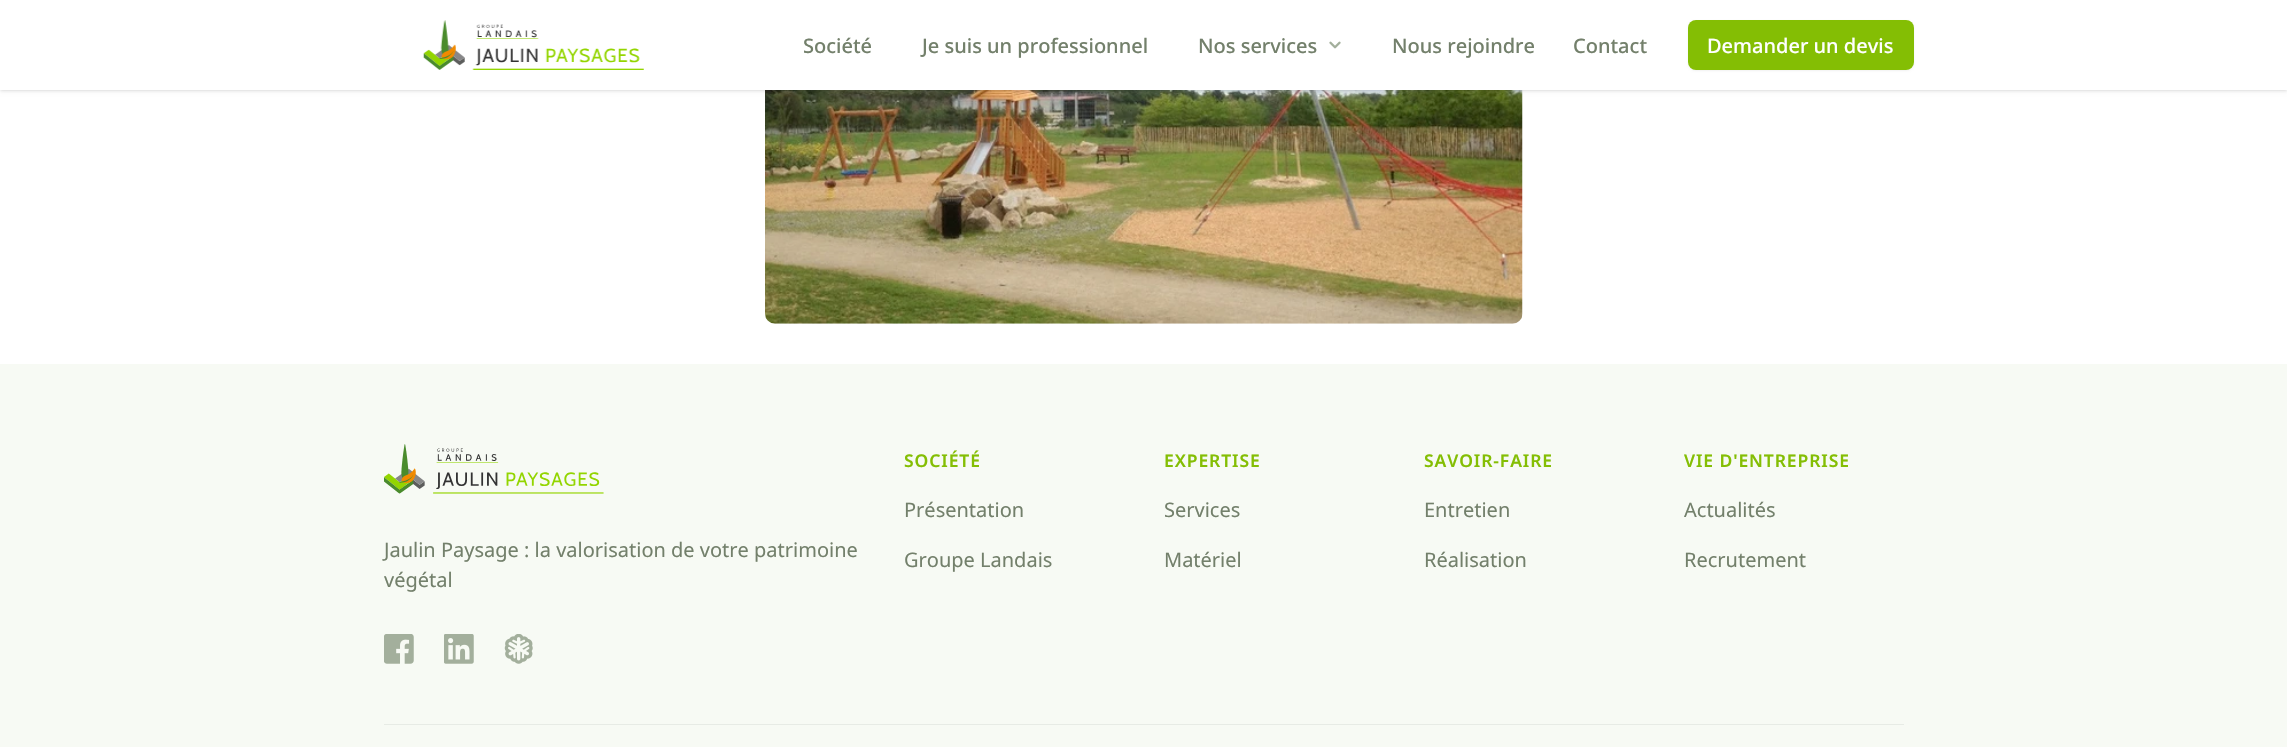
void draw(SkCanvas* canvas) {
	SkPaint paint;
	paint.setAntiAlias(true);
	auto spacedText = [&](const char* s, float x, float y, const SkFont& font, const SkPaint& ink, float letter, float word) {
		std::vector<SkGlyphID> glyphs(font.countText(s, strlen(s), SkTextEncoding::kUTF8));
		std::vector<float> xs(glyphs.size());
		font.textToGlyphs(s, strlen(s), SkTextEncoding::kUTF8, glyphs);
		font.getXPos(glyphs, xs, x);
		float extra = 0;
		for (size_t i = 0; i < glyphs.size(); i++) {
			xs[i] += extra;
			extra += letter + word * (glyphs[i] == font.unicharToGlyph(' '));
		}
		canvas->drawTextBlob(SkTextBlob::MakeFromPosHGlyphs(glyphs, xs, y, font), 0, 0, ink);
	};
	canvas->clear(0xffffffff);
	canvas->drawImageRect(SkImages::DeferredFromEncodedData(SkData::MakeFromFileName("img3.png")), SkRect::MakeXYWH(765, 90, 758, 234), SkSamplingOptions());
	paint.setColor(0x1a000000);
	paint.setMaskFilter(SkMaskFilter::MakeBlur(kNormal_SkBlurStyle, 1));
	canvas->drawRect(SkRect::MakeXYWH(1, 3, 2285, 87), paint);
	paint.setMaskFilter(nullptr);
	paint.setMaskFilter(SkMaskFilter::MakeBlur(kNormal_SkBlurStyle, 2));
	canvas->drawRect(SkRect::MakeXYWH(0, 1, 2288, 90), paint);
	paint.setMaskFilter(nullptr);
	paint.setColor(0xffffffff);
	canvas->drawRect(SkRect::MakeXYWH(0, 0, 2287, 90), paint);
	canvas->drawImageRect(SkImages::DeferredFromEncodedData(SkData::MakeFromFileName("img1.png")), SkRect::MakeXYWH(423, 20, 221, 50), SkSamplingOptions());
	SkFont f1(fontMgr->matchFamilyStyle("Noto Sans", SkFontStyle(500, SkFontStyle::kNormal_Width, SkFontStyle::kUpright_Slant)), 20);
	f1.setSubpixel(true);
	paint.setColor(0xff73806b);
	canvas->drawString("Société", 803, 53, f1, paint);
	canvas->drawString("Je suis un professionnel", 922, 53, f1, paint);
	canvas->drawString("Nos services", 1198, 53, f1, paint);
	canvas->drawImageRect(SkImages::DeferredFromEncodedData(SkData::MakeFromFileName("img2.png")), SkRect::MakeXYWH(1329, 41, 12, 8), SkSamplingOptions());
	canvas->drawString("Nous rejoindre", 1392, 53, f1, paint);
	canvas->drawString("Contact", 1573, 53, f1, paint);
	paint.setColor(0x0d000000);
	paint.setMaskFilter(SkMaskFilter::MakeBlur(kNormal_SkBlurStyle, 1));
	canvas->drawRoundRect(SkRect::MakeXYWH(1688, 21, 226, 50), 8, 8, paint);
	paint.setMaskFilter(nullptr);
	paint.setColor(0xff84be04);
	canvas->drawRoundRect(SkRect::MakeXYWH(1688, 20, 226, 50), 8, 8, paint);
	paint.setColor(0xffffffff);
	canvas->drawString("Demander un devis", 1707, 53, f1, paint);
	paint.setColor(0xfff7faf4);
	canvas->drawRect(SkRect::MakeXYWH(0, 364, 2287, 383), paint);
	canvas->drawImageRect(SkImages::DeferredFromEncodedData(SkData::MakeFromFileName("img4.png")), SkRect::MakeXYWH(384, 444, 220, 50), SkSamplingOptions());
	SkFont f2(fontMgr->matchFamilyStyle("Noto Sans", SkFontStyle::Normal()), 20);
	f2.setSubpixel(true);
	paint.setColor(0xff73806b);
	canvas->drawString("Jaulin Paysage : la valorisation de votre patrimoine", 384, 557, f2, paint);
	canvas->drawString("végétal", 384, 587, f2, paint);
	canvas->drawImageRect(SkImages::DeferredFromEncodedData(SkData::MakeFromFileName("img5.png")), SkRect::MakeXYWH(384, 634, 30, 30), SkSamplingOptions());
	canvas->drawImageRect(SkImages::DeferredFromEncodedData(SkData::MakeFromFileName("img6.png")), SkRect::MakeXYWH(444, 634, 30, 30), SkSamplingOptions());
	canvas->drawImageRect(SkImages::DeferredFromEncodedData(SkData::MakeFromFileName("img7.png")), SkRect::MakeXYWH(504, 634, 29, 30), SkSamplingOptions());
	SkFont f3(fontMgr->matchFamilyStyle("Noto Sans", SkFontStyle(600, SkFontStyle::kNormal_Width, SkFontStyle::kUpright_Slant)), 17.5);
	f3.setSubpixel(true);
	paint.setColor(0xff84be04);
	spacedText("SOCIÉTÉ", 904, 467, f3, paint, 0.9, 0);
	paint.setColor(0xff73806b);
	canvas->drawString("Présentation", 904, 517, f2, paint);
	canvas->drawString("Groupe Landais", 904, 567, f2, paint);
	paint.setColor(0xff84be04);
	spacedText("EXPERTISE", 1164, 467, f3, paint, 0.9, 0);
	paint.setColor(0xff73806b);
	canvas->drawString("Services", 1164, 517, f2, paint);
	canvas->drawString("Matériel", 1164, 567, f2, paint);
	paint.setColor(0xff84be04);
	spacedText("SAVOIR-FAIRE", 1424, 467, f3, paint, 0.9, 0);
	paint.setColor(0xff73806b);
	canvas->drawString("Entretien", 1424, 517, f2, paint);
	canvas->drawString("Réalisation", 1424, 567, f2, paint);
	paint.setColor(0xff84be04);
	spacedText("VIE D'ENTREPRISE", 1684, 467, f3, paint, 0.9, 0);
	paint.setColor(0xff73806b);
	canvas->drawString("Actualités", 1684, 517, f2, paint);
	canvas->drawString("Recrutement", 1684, 567, f2, paint);
	paint.setColor(0xffe7ebe5);
	canvas->drawRect(SkRect::MakeXYWH(384, 724, 1520, 1), paint);
}
